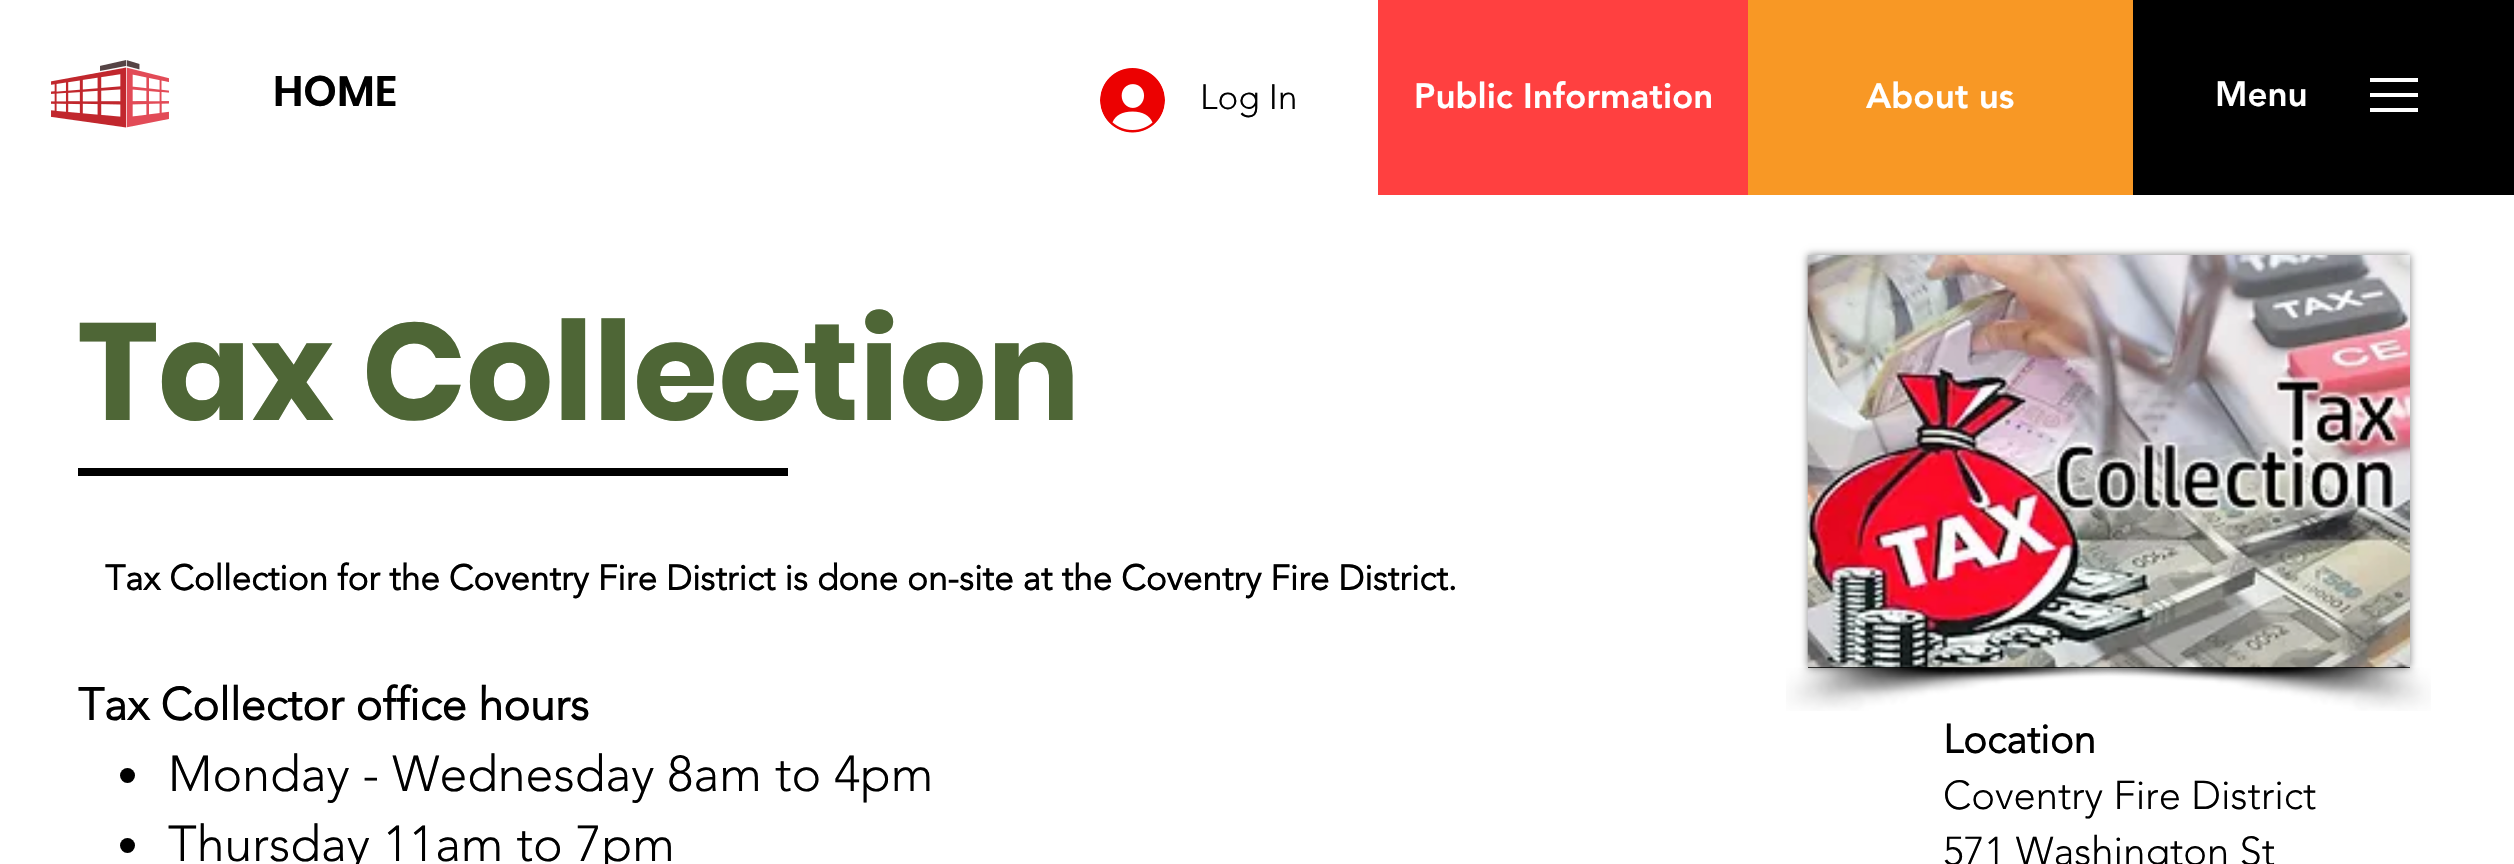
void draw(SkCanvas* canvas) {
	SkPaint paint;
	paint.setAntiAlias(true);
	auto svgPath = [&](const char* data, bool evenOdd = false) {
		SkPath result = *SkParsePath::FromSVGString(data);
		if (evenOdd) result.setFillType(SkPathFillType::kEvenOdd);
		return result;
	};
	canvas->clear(0xffffffff);
	canvas->drawImageRect(SkImages::DeferredFromEncodedData(SkData::MakeFromFileName("img1.png")), SkRect::MakeXYWH(51, 60, 118, 68), SkSamplingOptions());
	SkFont f1(fontMgr->matchFamilyStyle("Poppins", SkFontStyle(600, SkFontStyle::kNormal_Width, SkFontStyle::kUpright_Slant)), 42.5);
	f1.setSubpixel(true);
	paint.setColor(0xff000000);
	canvas->drawString("HOME", 273, 106, f1, paint);
	canvas->drawImageRect(SkImages::DeferredFromEncodedData(SkData::MakeFromFileName("img2.png")), SkRect::MakeXYWH(1100, 68, 65, 65), SkSamplingOptions());
	SkFont f2(fontMgr->matchFamilyStyle("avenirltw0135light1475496", SkFontStyle(300, SkFontStyle::kNormal_Width, SkFontStyle::kUpright_Slant)), 35);
	f2.setSubpixel(true);
	canvas->drawString("Log In", 1200, 109, f2, paint);
	paint.setColor(0xffff4040);
	canvas->drawRect(SkRect::MakeXYWH(1378, 0, 370, 195), paint);
	SkFont f3(fontMgr->matchFamilyStyle("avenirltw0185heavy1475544", SkFontStyle(900, SkFontStyle::kNormal_Width, SkFontStyle::kUpright_Slant)), 35);
	f3.setSubpixel(true);
	paint.setColor(0xffffffff);
	canvas->drawString("Public Information", 1414, 108, f3, paint);
	paint.setColor(0xfff89825);
	canvas->drawRect(SkRect::MakeXYWH(1748, 0, 385, 195), paint);
	paint.setColor(0xffffffff);
	canvas->drawString("About us", 1866, 108, f3, paint);
	paint.setColor(0xff000000);
	canvas->drawRect(SkRect::MakeXYWH(2133, 0, 381, 195), paint);
	paint.setColor(0xffffffff);
	canvas->drawString("Menu", 2215, 106, f3, paint);
	canvas->drawPath(svgPath("M2418 78V82H2370V78ZM2370 97H2418V93H2370ZM2370 112H2418V108H2370Z"), paint);
	SkFont f4(fontMgr->matchFamilyStyle("Poppins", SkFontStyle::Bold()), 137.5);
	f4.setSubpixel(true);
	paint.setColor(0xff4e6636);
	canvas->drawString("Tax Collection", 78, 420, f4, paint);
	paint.setColor(0x80000000);
	paint.setMaskFilter(SkMaskFilter::MakeBlur(kNormal_SkBlurStyle, 4));
	canvas->drawRect(SkRect::MakeXYWH(1808, 255, 602, 413), paint);
	paint.setMaskFilter(nullptr);
	paint.setColor(0xff000000);
	canvas->drawRect(SkRect::MakeXYWH(1808, 667, 602, 1), paint);
	canvas->drawImageRect(SkImages::DeferredFromEncodedData(SkData::MakeFromFileName("img3.png")), SkRect::MakeXYWH(1807, 255, 603, 413), SkSamplingOptions());
	canvas->drawImageRect(SkImages::DeferredFromEncodedData(SkData::MakeFromFileName("img4.png")), SkRect::MakeXYWH(1786, 667, 384, 44), SkSamplingOptions());
	canvas->drawImageRect(SkImages::DeferredFromEncodedData(SkData::MakeFromFileName("img5.png")), SkRect::MakeXYWH(2069, 667, 362, 44), SkSamplingOptions());
	canvas->drawRect(SkRect::MakeXYWH(78, 468, 710, 8), paint);
	SkFont f5(fontMgr->matchFamilyStyle("avenirltw0135light1475496", SkFontStyle::Bold()), 35);
	f5.setSubpixel(true);
	canvas->drawString("Tax Collection for the Coventry Fire District is done on-site at the Coventry Fire District.", 105, 590, f5, paint);
	SkFont f6(fontMgr->matchFamilyStyle("avenirltw0135light1475496", SkFontStyle::Bold()), 45);
	f6.setSubpixel(true);
	canvas->drawString("Tax Collector office hours", 78, 720, f6, paint);
	canvas->drawCircle(127.5, 775.5, 7.5, paint);
	SkFont f7(fontMgr->matchFamilyStyle("avenirltw0135light1475496", SkFontStyle(300, SkFontStyle::kNormal_Width, SkFontStyle::kUpright_Slant)), 50);
	f7.setSubpixel(true);
	canvas->drawString("Monday - Wednesday 8am to 4pm", 168, 791, f7, paint);
	canvas->drawCircle(127.5, 845.5, 7.5, paint);
	canvas->drawString("Thursday 11am to 7pm", 168, 861, f7, paint);
	SkFont f8(fontMgr->matchFamilyStyle("avenirltw0135light1475496", SkFontStyle::Bold()), 40);
	f8.setSubpixel(true);
	canvas->drawString("Location", 1943, 753, f8, paint);
	SkFont f9(fontMgr->matchFamilyStyle("avenirltw0135light1475496", SkFontStyle(300, SkFontStyle::kNormal_Width, SkFontStyle::kUpright_Slant)), 40);
	f9.setSubpixel(true);
	canvas->drawString("Coventry Fire District", 1943, 809, f9, paint);
	canvas->drawString("571 Washington St", 1943, 865, f9, paint);
}
